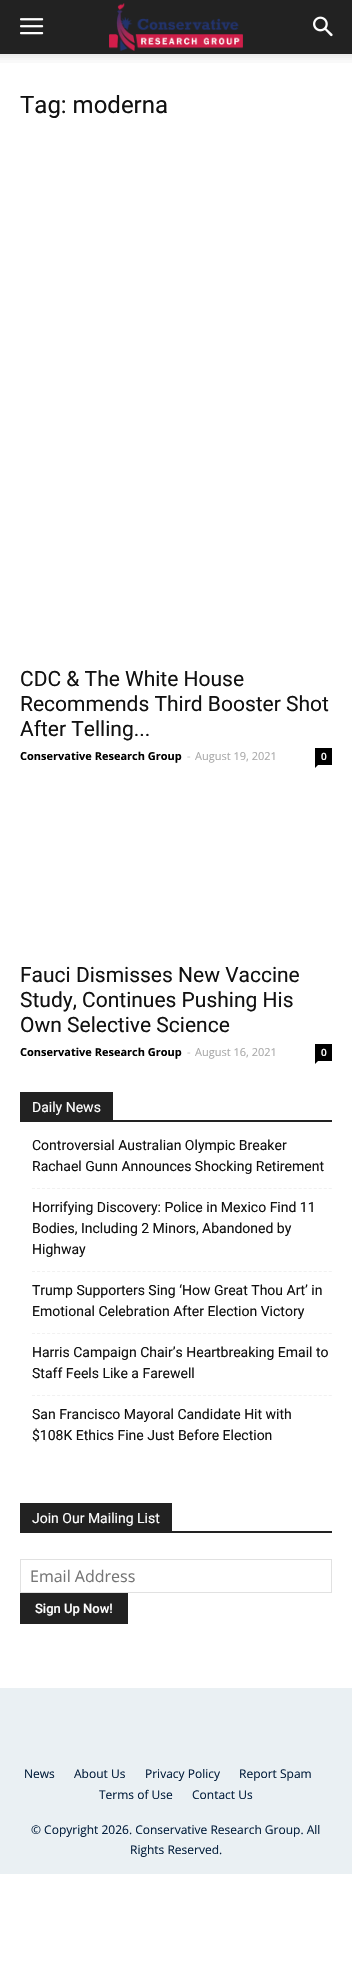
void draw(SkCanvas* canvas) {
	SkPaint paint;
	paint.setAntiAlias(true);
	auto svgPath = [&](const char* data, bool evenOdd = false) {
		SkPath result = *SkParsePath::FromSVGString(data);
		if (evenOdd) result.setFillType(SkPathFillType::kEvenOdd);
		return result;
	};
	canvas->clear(0xffffffff);
	paint.setColor(0xff222222);
	canvas->drawRect(SkRect::MakeXYWH(0, 0, 352, 54), paint);
	canvas->drawImageRect(SkImages::DeferredFromEncodedData(SkData::MakeFromFileName("img1.png")), SkRect::MakeXYWH(20, 18, 24, 17), SkSamplingOptions());
	canvas->drawImageRect(SkImages::DeferredFromEncodedData(SkData::MakeFromFileName("img2.png")), SkRect::MakeXYWH(109, 3, 134, 48), SkSamplingOptions());
	canvas->drawImageRect(SkImages::DeferredFromEncodedData(SkData::MakeFromFileName("img3.png")), SkRect::MakeXYWH(313, 16, 20, 21), SkSamplingOptions());
	canvas->drawImageRect(SkImages::DeferredFromEncodedData(SkData::MakeFromFileName("img4.png")), SkRect::MakeXYWH(0, 54, 352, 9), SkSamplingOptions());
	SkFont f1(fontMgr->matchFamilyStyle("Roboto", SkFontStyle::Normal()), 24);
	f1.setSubpixel(true);
	paint.setColor(0xff111111);
	canvas->drawString("Tag: moderna", 20, 113, f1, paint);
	SkFont f2(fontMgr->matchFamilyStyle("Roboto", SkFontStyle::Normal()), 21);
	f2.setSubpixel(true);
	canvas->drawString("CDC & The White House", 20, 686, f2, paint);
	canvas->drawString("Recommends Third Booster Shot", 20, 711, f2, paint);
	canvas->drawString("After Telling...", 20, 736, f2, paint);
	SkFont f3(fontMgr->matchFamilyStyle("Open Sans", SkFontStyle::Bold()), 11);
	f3.setSubpixel(true);
	paint.setColor(0xff000000);
	canvas->drawString("Conservative Research Group", 20, 760, f3, paint);
	SkFont f4(fontMgr->matchFamilyStyle("Open Sans", SkFontStyle::Normal()), 11);
	f4.setSubpixel(true);
	paint.setColor(0xffcccccc);
	canvas->drawString("-", 187, 760, f4, paint);
	paint.setColor(0xffaaaaaa);
	canvas->drawString("August 19, 2021", 195, 760, f4, paint);
	paint.setColor(0xff000000);
	canvas->drawRect(SkRect::MakeXYWH(315, 748, 17, 17), paint);
	SkFont f5(fontMgr->matchFamilyStyle("Open Sans", SkFontStyle(600, SkFontStyle::kNormal_Width, SkFontStyle::kUpright_Slant)), 10);
	f5.setSubpixel(true);
	paint.setColor(0xffffffff);
	canvas->drawString("0", 321, 760, f5, paint);
	paint.setColor(0xff000000);
	canvas->drawPath(svgPath("M315 765H318L315 768Z"), paint);
	paint.setColor(0xff111111);
	canvas->drawString("Fauci Dismisses New Vaccine", 20, 982, f2, paint);
	canvas->drawString("Study, Continues Pushing His", 20, 1007, f2, paint);
	canvas->drawString("Own Selective Science", 20, 1032, f2, paint);
	paint.setColor(0xff000000);
	canvas->drawString("Conservative Research Group", 20, 1056, f3, paint);
	paint.setColor(0xffcccccc);
	canvas->drawString("-", 187, 1056, f4, paint);
	paint.setColor(0xffaaaaaa);
	canvas->drawString("August 16, 2021", 195, 1056, f4, paint);
	paint.setColor(0xff000000);
	canvas->drawRect(SkRect::MakeXYWH(315, 1044, 17, 17), paint);
	paint.setColor(0xffffffff);
	canvas->drawString("0", 321, 1056, f5, paint);
	paint.setColor(0xff000000);
	canvas->drawPath(svgPath("M315 1061H318L315 1064Z"), paint);
	paint.setColor(0xff222222);
	canvas->drawRect(SkRect::MakeXYWH(20, 1120, 312, 2), paint);
	canvas->drawRect(SkRect::MakeXYWH(20, 1092, 93, 28), paint);
	SkFont f6(fontMgr->matchFamilyStyle("Roboto", SkFontStyle::Normal()), 14);
	f6.setSubpixel(true);
	paint.setColor(0xffffffff);
	canvas->drawString("Daily News", 32, 1112, f6, paint);
	paint.setStroke(true);
	paint.setStrokeWidth(1);
	paint.setColor(0xfff1f1f1);
	paint.setPathEffect(SkDashPathEffect::Make({{3, 2.03f}}, 0));
	canvas->drawPath(svgPath("M32 1188.5H332"), paint);
	paint.setPathEffect(nullptr);
	paint.setStroke(false);
	paint.setColor(0xff111111);
	canvas->drawString("Controversial Australian Olympic Breaker", 32, 1150, f6, paint);
	canvas->drawString("Rachael Gunn Announces Shocking Retirement", 32, 1171, f6, paint);
	paint.setStroke(true);
	paint.setColor(0xfff1f1f1);
	paint.setPathEffect(SkDashPathEffect::Make({{3, 2.03f}}, 0));
	canvas->drawPath(svgPath("M32 1271.5H332"), paint);
	paint.setPathEffect(nullptr);
	paint.setStroke(false);
	paint.setColor(0xff111111);
	canvas->drawString("Horrifying Discovery: Police in Mexico Find 11", 32, 1212, f6, paint);
	canvas->drawString("Bodies, Including 2 Minors, Abandoned by", 32, 1233, f6, paint);
	canvas->drawString("Highway", 32, 1254, f6, paint);
	paint.setStroke(true);
	paint.setColor(0xfff1f1f1);
	paint.setPathEffect(SkDashPathEffect::Make({{3, 2.03f}}, 0));
	canvas->drawPath(svgPath("M32 1333.5H332"), paint);
	paint.setPathEffect(nullptr);
	paint.setStroke(false);
	paint.setColor(0xff111111);
	canvas->drawString("Trump Supporters Sing ‘How Great Thou Art’ in", 32, 1295, f6, paint);
	canvas->drawString("Emotional Celebration After Election Victory", 32, 1316, f6, paint);
	paint.setStroke(true);
	paint.setColor(0xfff1f1f1);
	paint.setPathEffect(SkDashPathEffect::Make({{3, 2.03f}}, 0));
	canvas->drawPath(svgPath("M32 1395.5H332"), paint);
	paint.setPathEffect(nullptr);
	paint.setStroke(false);
	paint.setColor(0xff111111);
	canvas->drawString("Harris Campaign Chair’s Heartbreaking Email to", 32, 1357, f6, paint);
	canvas->drawString("Staff Feels Like a Farewell", 32, 1378, f6, paint);
	canvas->drawString("San Francisco Mayoral Candidate Hit with", 32, 1419, f6, paint);
	canvas->drawString("$108K Ethics Fine Just Before Election", 32, 1440, f6, paint);
	paint.setColor(0xff222222);
	canvas->drawRect(SkRect::MakeXYWH(20, 1531, 312, 2), paint);
	canvas->drawRect(SkRect::MakeXYWH(20, 1503, 152, 28), paint);
	paint.setColor(0xffffffff);
	canvas->drawString("Join Our Mailing List", 32, 1523, f6, paint);
	paint.setStroke(true);
	paint.setColor(0xffe1e1e1);
	canvas->drawRect(SkRect::MakeXYWH(20.5, 1559.5, 311, 33), paint);
	SkFont f7(fontMgr->matchFamilyStyle("Open Sans", SkFontStyle::Normal()), 16);
	f7.setSubpixel(true);
	paint.setStroke(false);
	paint.setColor(0xff757575);
	canvas->drawString("Email Address", 30, 1582, f7, paint);
	paint.setColor(0xff222222);
	canvas->drawRect(SkRect::MakeXYWH(20, 1593, 108, 31), paint);
	SkFont f8(fontMgr->matchFamilyStyle("Roboto", SkFontStyle(500, SkFontStyle::kNormal_Width, SkFontStyle::kUpright_Slant)), 13);
	f8.setSubpixel(true);
	paint.setColor(0xffffffff);
	canvas->drawString("Sign Up Now!", 35, 1613, f8, paint);
	paint.setColor(0xffeaf0f3);
	canvas->drawRect(SkRect::MakeXYWH(0, 1688, 352, 186), paint);
	SkFont f9(fontMgr->matchFamilyStyle("Open Sans", SkFontStyle::Normal()), 12);
	f9.setSubpixel(true);
	paint.setColor(0xff041f3d);
	canvas->drawString("News", 24, 1778, f9, paint);
	canvas->drawString("About Us", 74, 1778, f9, paint);
	canvas->drawString("Privacy Policy", 145, 1778, f9, paint);
	canvas->drawString("Report Spam", 239, 1778, f9, paint);
	canvas->drawString("Terms of Use", 99, 1799, f9, paint);
	canvas->drawString("Contact Us", 192, 1799, f9, paint);
	canvas->drawString("© Copyright 2026. Conservative Research Group. All", 31, 1834, f9, paint);
	canvas->drawString("Rights Reserved.", 130, 1854, f9, paint);
}
